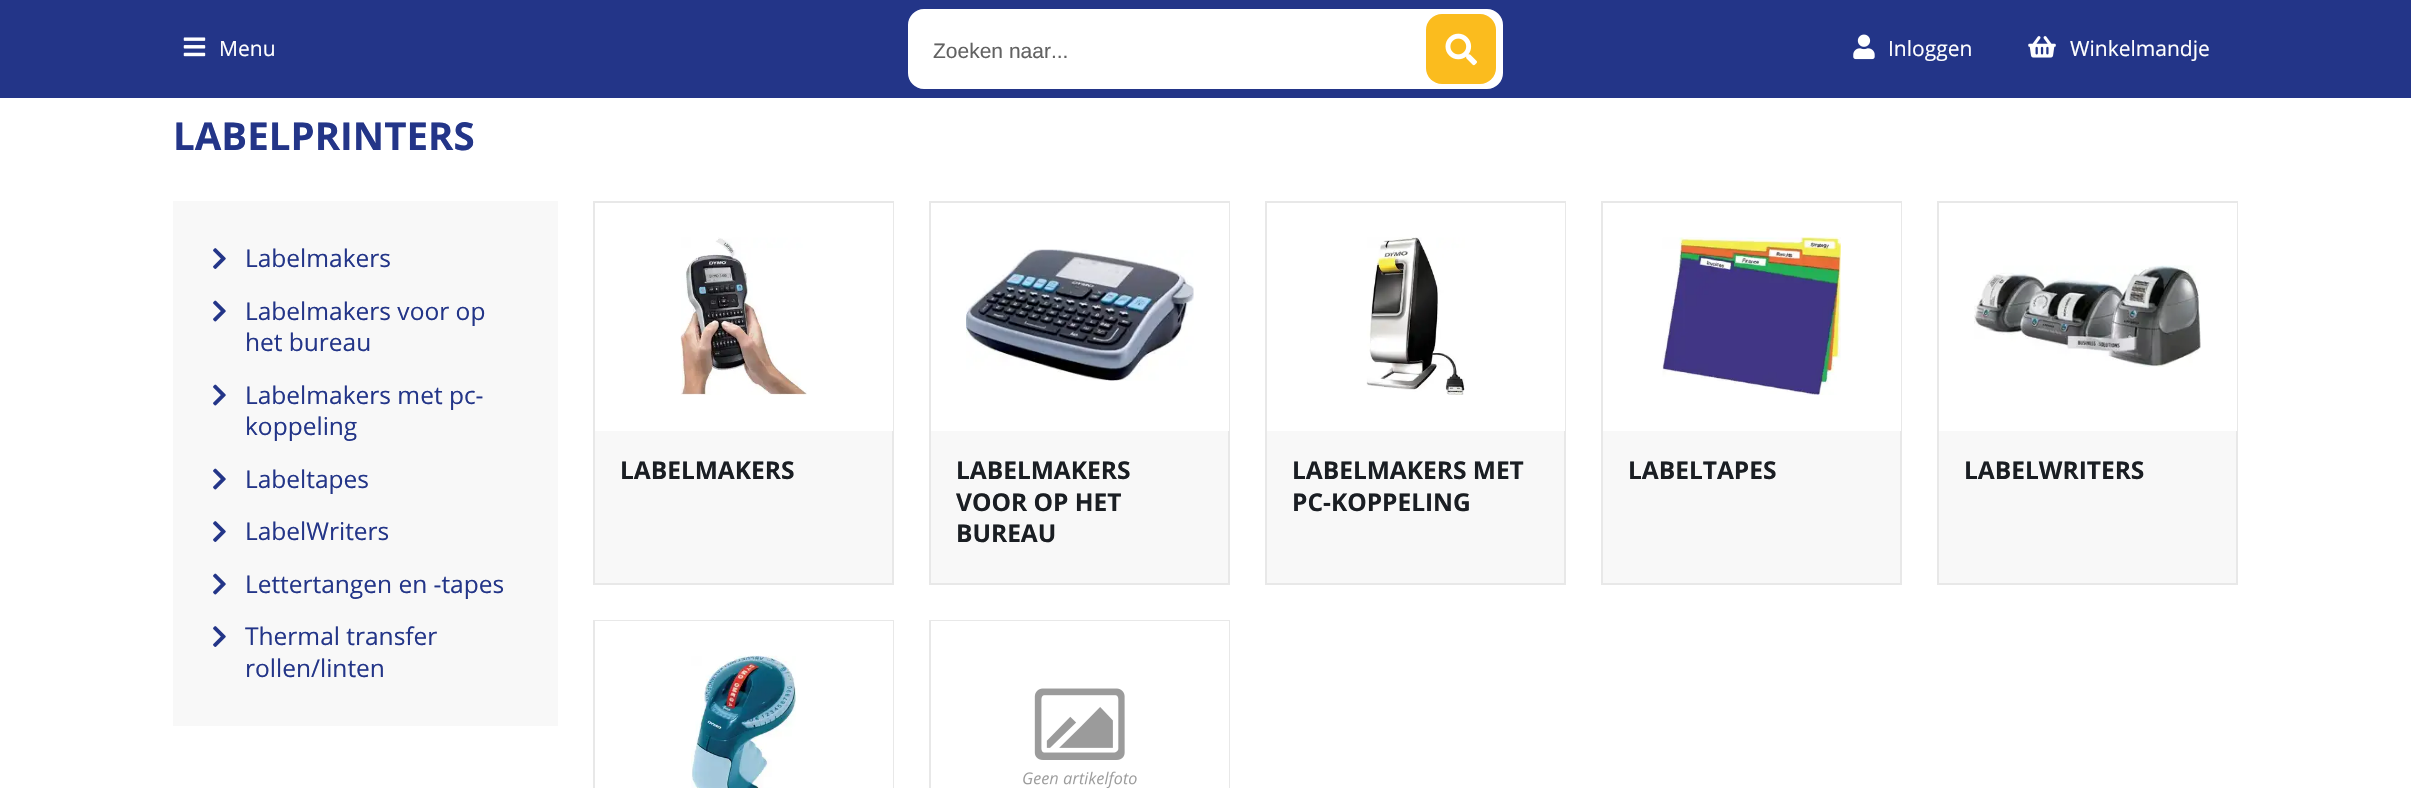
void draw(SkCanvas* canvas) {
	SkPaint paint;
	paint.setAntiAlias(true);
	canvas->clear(0xffffffff);
	paint.setColor(0xff233588);
	canvas->drawRect(SkRect::MakeXYWH(0, 0, 2411, 98), paint);
	canvas->drawImageRect(SkImages::DeferredFromEncodedData(SkData::MakeFromFileName("img1.png")), SkRect::MakeXYWH(183, 37, 23, 20), SkSamplingOptions());
	SkFont f1(fontMgr->matchFamilyStyle("Open Sans", SkFontStyle::Normal()), 21);
	f1.setSubpixel(true);
	paint.setColor(0xffffffff);
	canvas->drawString("Menu", 219, 56, f1, paint);
	canvas->drawRoundRect(SkRect::MakeXYWH(910.5, 11.5, 590, 75), 13.5, 13.5, paint);
	paint.setStroke(true);
	paint.setStrokeWidth(5);
	canvas->drawRoundRect(SkRect::MakeXYWH(910.5, 11.5, 590, 75), 13.5, 13.5, paint);
	SkFont f2(fontMgr->matchFamilyStyle("Liberation Sans", SkFontStyle::Normal()), 21);
	f2.setSubpixel(true);
	paint.setStroke(false);
	paint.setColor(0xff626262);
	canvas->drawString("Zoeken naar...", 933, 58, f2, paint);
	paint.setColor(0xfffbbc1e);
	canvas->drawRoundRect(SkRect::MakeXYWH(1426, 14, 70, 70), 16, 16, paint);
	canvas->drawImageRect(SkImages::DeferredFromEncodedData(SkData::MakeFromFileName("img2.png")), SkRect::MakeXYWH(1445, 33, 32, 33), SkSamplingOptions());
	canvas->drawImageRect(SkImages::DeferredFromEncodedData(SkData::MakeFromFileName("img3.png")), SkRect::MakeXYWH(1853, 34, 22, 26), SkSamplingOptions());
	paint.setColor(0xffffffff);
	canvas->drawString("Inloggen", 1888, 56, f1, paint);
	canvas->drawImageRect(SkImages::DeferredFromEncodedData(SkData::MakeFromFileName("img4.png")), SkRect::MakeXYWH(2028, 36, 28, 22), SkSamplingOptions());
	canvas->drawString("Winkelmandje", 2070, 56, f1, paint);
	SkFont f3(fontMgr->matchFamilyStyle("Open Sans", SkFontStyle::Bold()), 38.5);
	f3.setSubpixel(true);
	paint.setColor(0xff233588);
	canvas->drawString("LABELPRINTERS", 173, 150, f3, paint);
	paint.setColor(0xfff8f8f8);
	canvas->drawRect(SkRect::MakeXYWH(173, 201, 385, 525), paint);
	canvas->drawImageRect(SkImages::DeferredFromEncodedData(SkData::MakeFromFileName("img5.png")), SkRect::MakeXYWH(213, 248, 13, 21), SkSamplingOptions());
	SkFont f4(fontMgr->matchFamilyStyle("Open Sans", SkFontStyle::Normal()), 24.5);
	f4.setSubpixel(true);
	paint.setColor(0xff233588);
	canvas->drawString("Labelmakers", 245, 267, f4, paint);
	canvas->drawImageRect(SkImages::DeferredFromEncodedData(SkData::MakeFromFileName("img6.png")), SkRect::MakeXYWH(213, 300, 13, 22), SkSamplingOptions());
	canvas->drawString("Labelmakers voor op", 245, 320, f4, paint);
	canvas->drawString("het bureau", 245, 351, f4, paint);
	canvas->drawImageRect(SkImages::DeferredFromEncodedData(SkData::MakeFromFileName("img6.png")), SkRect::MakeXYWH(213, 384, 13, 22), SkSamplingOptions());
	canvas->drawString("Labelmakers met pc-", 245, 404, f4, paint);
	canvas->drawString("koppeling", 245, 435, f4, paint);
	canvas->drawImageRect(SkImages::DeferredFromEncodedData(SkData::MakeFromFileName("img6.png")), SkRect::MakeXYWH(213, 468, 13, 22), SkSamplingOptions());
	canvas->drawString("Labeltapes", 245, 488, f4, paint);
	canvas->drawImageRect(SkImages::DeferredFromEncodedData(SkData::MakeFromFileName("img5.png")), SkRect::MakeXYWH(213, 521, 13, 21), SkSamplingOptions());
	canvas->drawString("LabelWriters", 245, 540, f4, paint);
	canvas->drawImageRect(SkImages::DeferredFromEncodedData(SkData::MakeFromFileName("img6.png")), SkRect::MakeXYWH(213, 573, 13, 22), SkSamplingOptions());
	canvas->drawString("Lettertangen en -tapes", 245, 593, f4, paint);
	canvas->drawImageRect(SkImages::DeferredFromEncodedData(SkData::MakeFromFileName("img5.png")), SkRect::MakeXYWH(213, 626, 13, 21), SkSamplingOptions());
	canvas->drawString("Thermal transfer", 245, 645, f4, paint);
	canvas->drawString("rollen/linten", 245, 677, f4, paint);
	paint.setColor(0xfff8f8f8);
	canvas->drawRect(SkRect::MakeXYWH(595, 431, 297, 152), paint);
	paint.setStroke(true);
	paint.setStrokeWidth(2);
	paint.setColor(0xffe8e8e8);
	canvas->drawRect(SkRect::MakeXYWH(594, 202, 299, 382), paint);
	paint.setStroke(false);
	paint.setColor(0xffffffff);
	canvas->drawRect(SkRect::MakeXYWH(892, 203, 1, 228), paint);
	canvas->drawImageRect(SkImages::DeferredFromEncodedData(SkData::MakeFromFileName("img7.png")), SkRect::MakeXYWH(680, 237, 127, 158), SkSamplingOptions());
	SkFont f5(fontMgr->matchFamilyStyle("Open Sans", SkFontStyle::Bold()), 24.5);
	f5.setSubpixel(true);
	paint.setColor(0xff1a1e23);
	canvas->drawString("LABELMAKERS", 620, 479, f5, paint);
	paint.setColor(0xfff8f8f8);
	canvas->drawRect(SkRect::MakeXYWH(931, 431, 297, 152), paint);
	paint.setStroke(true);
	paint.setColor(0xffe8e8e8);
	canvas->drawRect(SkRect::MakeXYWH(930, 202, 299, 382), paint);
	paint.setStroke(false);
	paint.setColor(0xffffffff);
	canvas->drawRect(SkRect::MakeXYWH(1228, 203, 1, 228), paint);
	canvas->drawImageRect(SkImages::DeferredFromEncodedData(SkData::MakeFromFileName("img8.png")), SkRect::MakeXYWH(966, 249, 228, 132), SkSamplingOptions());
	paint.setColor(0xff1a1e23);
	canvas->drawString("LABELMAKERS", 956, 479, f5, paint);
	canvas->drawString("VOOR OP HET", 956, 511, f5, paint);
	canvas->drawString("BUREAU", 956, 542, f5, paint);
	paint.setColor(0xfff8f8f8);
	canvas->drawRect(SkRect::MakeXYWH(1267, 431, 297, 152), paint);
	paint.setStroke(true);
	paint.setColor(0xffe8e8e8);
	canvas->drawRect(SkRect::MakeXYWH(1266, 202, 299, 382), paint);
	paint.setStroke(false);
	paint.setColor(0xffffffff);
	canvas->drawRect(SkRect::MakeXYWH(1564, 203, 1, 228), paint);
	canvas->drawImageRect(SkImages::DeferredFromEncodedData(SkData::MakeFromFileName("img9.png")), SkRect::MakeXYWH(1366, 237, 99, 158), SkSamplingOptions());
	paint.setColor(0xff1a1e23);
	canvas->drawString("LABELMAKERS MET", 1292, 479, f5, paint);
	canvas->drawString("PC-KOPPELING", 1292, 511, f5, paint);
	paint.setColor(0xfff8f8f8);
	canvas->drawRect(SkRect::MakeXYWH(1603, 431, 297, 152), paint);
	paint.setStroke(true);
	paint.setColor(0xffe8e8e8);
	canvas->drawRect(SkRect::MakeXYWH(1602, 202, 299, 382), paint);
	paint.setStroke(false);
	paint.setColor(0xffffffff);
	canvas->drawRect(SkRect::MakeXYWH(1900, 203, 1, 228), paint);
	canvas->drawImageRect(SkImages::DeferredFromEncodedData(SkData::MakeFromFileName("img10.png")), SkRect::MakeXYWH(1662, 237, 179, 158), SkSamplingOptions());
	paint.setColor(0xff1a1e23);
	canvas->drawString("LABELTAPES", 1628, 479, f5, paint);
	paint.setColor(0xfff8f8f8);
	canvas->drawRect(SkRect::MakeXYWH(1939, 431, 297, 152), paint);
	paint.setStroke(true);
	paint.setColor(0xffe8e8e8);
	canvas->drawRect(SkRect::MakeXYWH(1938, 202, 299, 382), paint);
	paint.setStroke(false);
	paint.setColor(0xffffffff);
	canvas->drawRect(SkRect::MakeXYWH(2236, 203, 1, 228), paint);
	canvas->drawImageRect(SkImages::DeferredFromEncodedData(SkData::MakeFromFileName("img11.png")), SkRect::MakeXYWH(1974, 265, 227, 102), SkSamplingOptions());
	paint.setColor(0xff1a1e23);
	canvas->drawString("LABELWRITERS", 1964, 479, f5, paint);
	paint.setStroke(true);
	paint.setColor(0xffe8e8e8);
	canvas->drawRect(SkRect::MakeXYWH(594, 621, 299, 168), paint);
	paint.setStroke(false);
	paint.setColor(0xffffffff);
	canvas->drawRect(SkRect::MakeXYWH(595, 621, 298, 167), paint);
	canvas->drawImageRect(SkImages::DeferredFromEncodedData(SkData::MakeFromFileName("img12.png")), SkRect::MakeXYWH(691, 655, 106, 133), SkSamplingOptions());
	paint.setStroke(true);
	paint.setColor(0xffe8e8e8);
	canvas->drawRect(SkRect::MakeXYWH(930, 621, 299, 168), paint);
	paint.setStroke(false);
	paint.setColor(0xffffffff);
	canvas->drawRect(SkRect::MakeXYWH(931, 621, 298, 167), paint);
	canvas->drawImageRect(SkImages::DeferredFromEncodedData(SkData::MakeFromFileName("img13.png")), SkRect::MakeXYWH(1023, 688, 114, 100), SkSamplingOptions());
}
